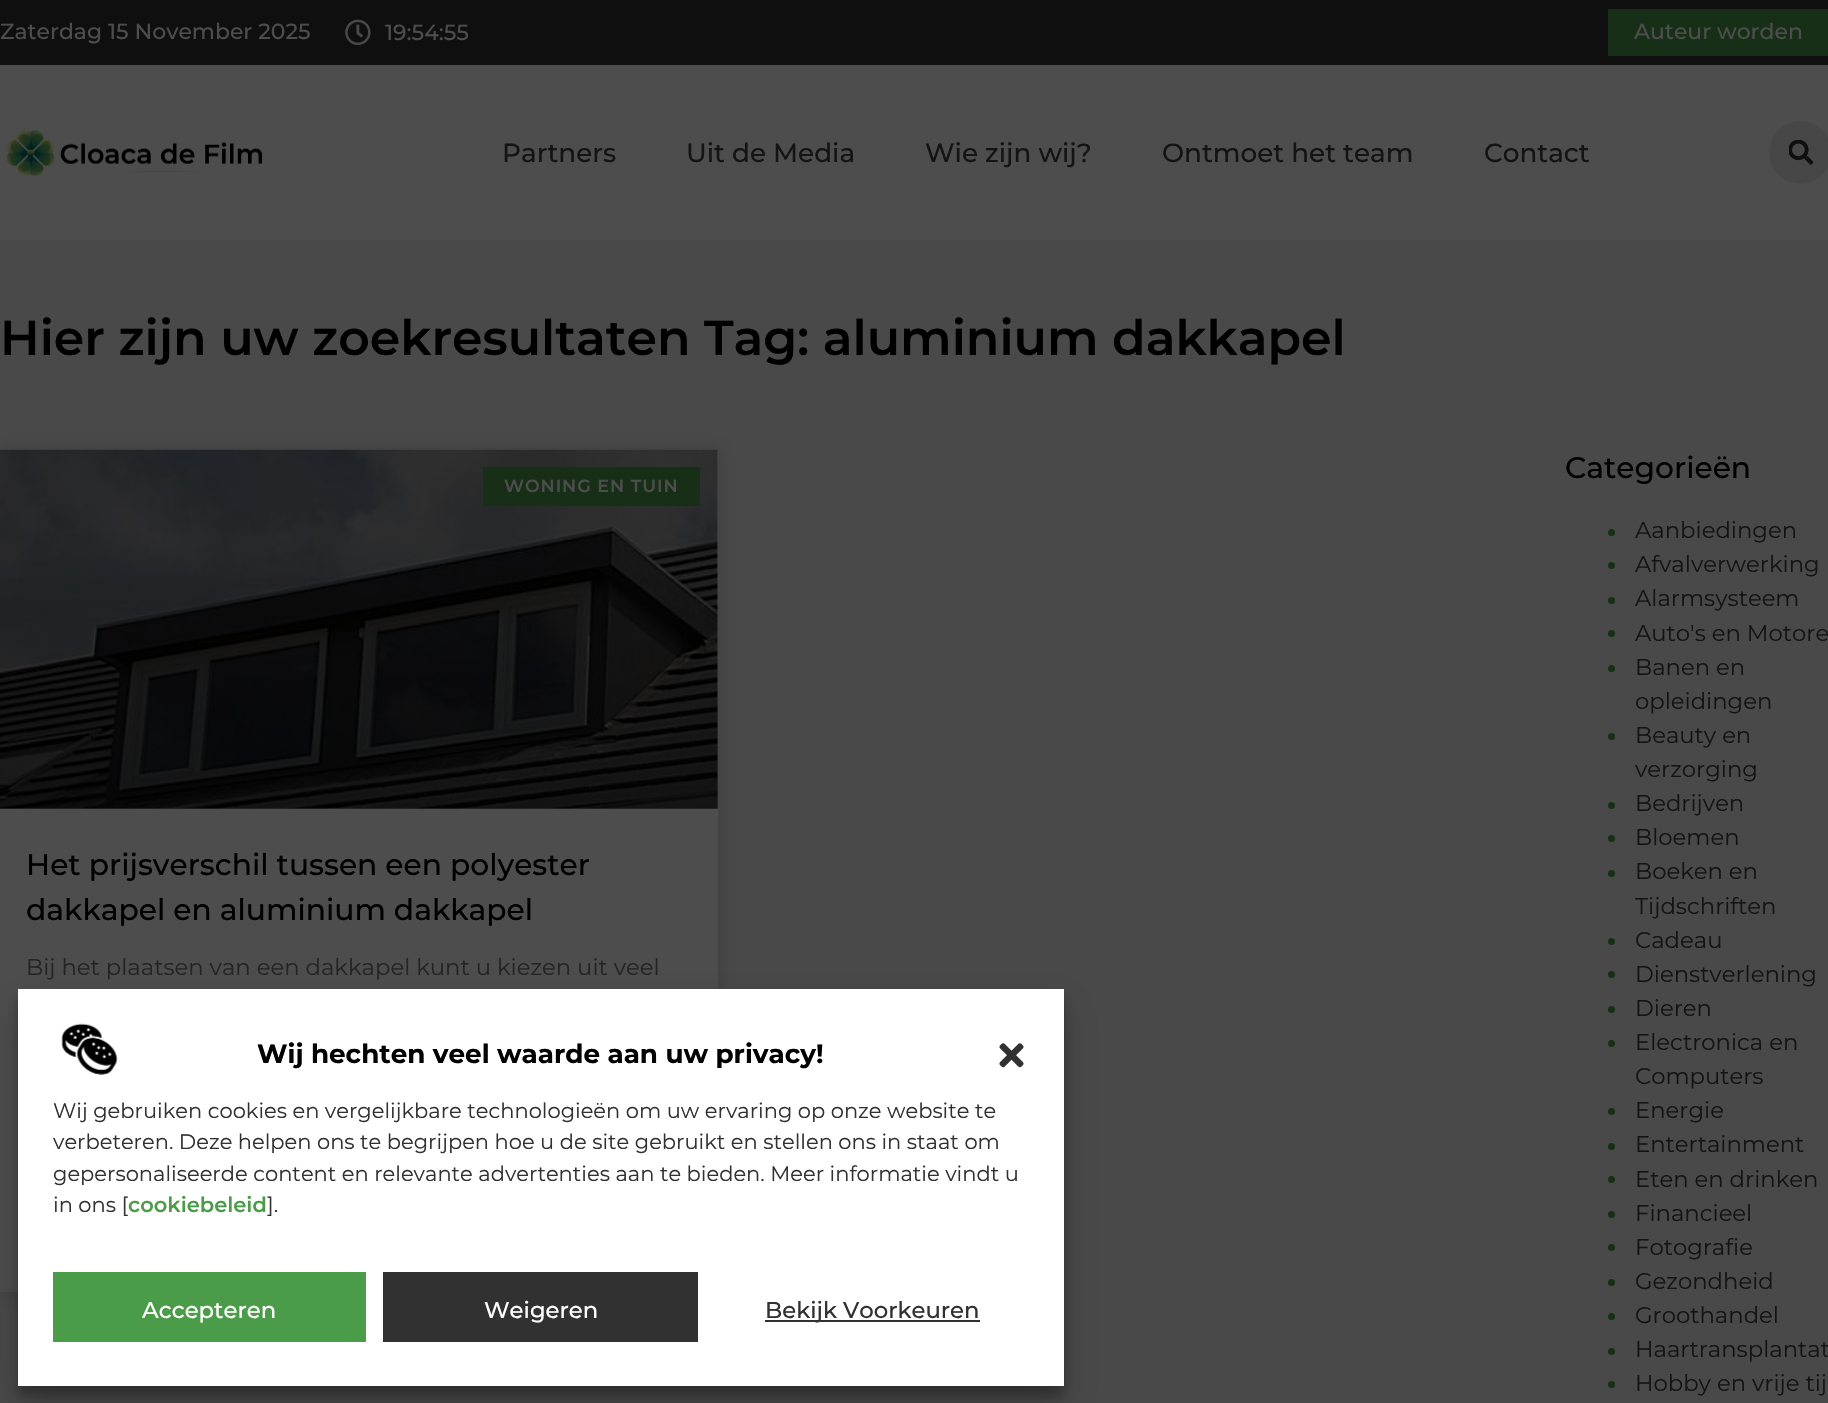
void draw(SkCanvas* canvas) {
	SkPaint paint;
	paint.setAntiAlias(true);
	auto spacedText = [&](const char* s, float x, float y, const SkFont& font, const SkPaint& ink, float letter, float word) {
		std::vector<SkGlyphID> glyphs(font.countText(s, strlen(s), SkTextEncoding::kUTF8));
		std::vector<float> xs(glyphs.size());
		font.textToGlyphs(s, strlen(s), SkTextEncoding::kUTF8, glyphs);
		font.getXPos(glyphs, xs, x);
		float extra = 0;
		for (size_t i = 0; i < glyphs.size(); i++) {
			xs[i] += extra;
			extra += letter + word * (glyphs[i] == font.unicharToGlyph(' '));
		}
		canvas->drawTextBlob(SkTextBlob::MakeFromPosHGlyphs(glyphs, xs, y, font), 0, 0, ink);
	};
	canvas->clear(0xff494949);
	paint.setColor(0xff0f0f0f);
	canvas->drawRect(SkRect::MakeXYWH(0, 0, 1828, 65), paint);
	SkFont f1(fontMgr->matchFamilyStyle("Montserrat", SkFontStyle(500, SkFontStyle::kNormal_Width, SkFontStyle::kUpright_Slant)), 21.9);
	f1.setSubpixel(true);
	paint.setColor(0xff4d4d4d);
	canvas->drawString("Zaterdag 15 November 2025", 0, 39, f1, paint);
	canvas->drawImageRect(SkImages::DeferredFromEncodedData(SkData::MakeFromFileName("img1.png")), SkRect::MakeXYWH(345, 19, 26, 27), SkSamplingOptions());
	canvas->drawString("19:54:55", 385, 40, f1, paint);
	paint.setColor(0xff162f16);
	canvas->drawRect(SkRect::MakeXYWH(1608, 9, 220, 47), paint);
	paint.setColor(0xff4d4d4d);
	canvas->drawString("Auteur worden", 1634, 39, f1, paint);
	canvas->drawRect(SkRect::MakeXYWH(0, 65, 1828, 175), paint);
	canvas->drawImageRect(SkImages::DeferredFromEncodedData(SkData::MakeFromFileName("img2.png")), SkRect::MakeXYWH(6, 129, 257, 48), SkSamplingOptions());
	SkFont f2(fontMgr->matchFamilyStyle("Montserrat", SkFontStyle(500, SkFontStyle::kNormal_Width, SkFontStyle::kUpright_Slant)), 26.25);
	f2.setSubpixel(true);
	paint.setColor(0xff141414);
	canvas->drawString("Partners", 502, 162, f2, paint);
	canvas->drawString("Uit de Media", 686, 162, f2, paint);
	canvas->drawString("Wie zijn wij?", 925, 162, f2, paint);
	canvas->drawString("Ontmoet het team", 1162, 162, f2, paint);
	canvas->drawString("Contact", 1484, 162, f2, paint);
	paint.setColor(0xff474747);
	canvas->drawCircle(1800.5, 152.5, 31.5, paint);
	canvas->drawImageRect(SkImages::DeferredFromEncodedData(SkData::MakeFromFileName("img3.png")), SkRect::MakeXYWH(1789, 140, 25, 25), SkSamplingOptions());
	SkFont f3(fontMgr->matchFamilyStyle("Montserrat", SkFontStyle(600, SkFontStyle::kNormal_Width, SkFontStyle::kUpright_Slant)), 49);
	f3.setSubpixel(true);
	paint.setColor(0xff000000);
	canvas->drawString("Hier zijn uw zoekresultaten Tag: aluminium dakkapel", 0, 355, f3, paint);
	paint.setColor(0x26000000);
	paint.setMaskFilter(SkMaskFilter::MakeBlur(kNormal_SkBlurStyle, 9));
	canvas->drawRect(SkRect::MakeXYWH(0, 450, 718, 842), paint);
	paint.setMaskFilter(nullptr);
	paint.setColor(0xff4d4d4d);
	canvas->drawRect(SkRect::MakeXYWH(0, 450, 718, 842), paint);
	canvas->drawImageRect(SkImages::DeferredFromEncodedData(SkData::MakeFromFileName("img4.png")), SkRect::MakeXYWH(0, 449, 718, 360), SkSamplingOptions());
	{
		const SkColor colors[] = {0x59000000, 0x00000000};
		const float stops[] = {0, 0.75};
		const SkPoint ends[] = {{359, 809}, {359, 450}};
		paint.setShader(SkGradientShader::MakeLinear(ends, colors, stops, 2, SkTileMode::kClamp));
		paint.setAlpha(255);
	}
	canvas->drawRect(SkRect::MakeXYWH(0, 578, 718, 231), paint);
	paint.setShader(nullptr);
	paint.setColor(0xff162f16);
	canvas->drawRect(SkRect::MakeXYWH(483, 467, 217, 39), paint);
	SkFont f4(fontMgr->matchFamilyStyle("Montserrat", SkFontStyle(600, SkFontStyle::kNormal_Width, SkFontStyle::kUpright_Slant)), 17.5);
	f4.setSubpixel(true);
	paint.setColor(0xff4d4d4d);
	spacedText("WONING EN TUIN", 504, 492, f4, paint, 0.9, 0);
	SkFont f5(fontMgr->matchFamilyStyle("Montserrat", SkFontStyle(500, SkFontStyle::kNormal_Width, SkFontStyle::kUpright_Slant)), 29.75);
	f5.setSubpixel(true);
	paint.setColor(0xff000000);
	canvas->drawString("Het prijsverschil tussen een polyester", 26, 875, f5, paint);
	canvas->drawString("dakkapel en aluminium dakkapel", 26, 920, f5, paint);
	SkFont f6(fontMgr->matchFamilyStyle("Montserrat", SkFontStyle::Normal()), 22.75);
	f6.setSubpixel(true);
	paint.setColor(0xff242424);
	canvas->drawString("Bij het plaatsen van een dakkapel kunt u kiezen uit veel", 26, 975, f6, paint);
	paint.setColor(0xff000000);
	canvas->drawString("Categorieën", 1565, 478, f5, paint);
	paint.setColor(0xff162f16);
	canvas->drawCircle(1611.5, 532.5, 3.5, paint);
	paint.setColor(0xff141414);
	canvas->drawString("Aanbiedingen", 1635, 538, f6, paint);
	paint.setColor(0xff162f16);
	canvas->drawCircle(1611.5, 565.5, 3.5, paint);
	paint.setColor(0xff141414);
	canvas->drawString("Afvalverwerking", 1635, 572, f6, paint);
	paint.setColor(0xff162f16);
	canvas->drawCircle(1611.5, 600.5, 3.5, paint);
	paint.setColor(0xff141414);
	canvas->drawString("Alarmsysteem", 1635, 606, f6, paint);
	paint.setColor(0xff162f16);
	canvas->drawCircle(1611.5, 633.5, 3.5, paint);
	paint.setColor(0xff141414);
	canvas->drawString("Auto's en Motore", 1635, 641, f6, paint);
	paint.setColor(0xff162f16);
	canvas->drawCircle(1611.5, 668.5, 3.5, paint);
	paint.setColor(0xff141414);
	canvas->drawString("Banen en", 1635, 675, f6, paint);
	canvas->drawString("opleidingen", 1635, 709, f6, paint);
	paint.setColor(0xff162f16);
	canvas->drawCircle(1611.5, 736.5, 3.5, paint);
	paint.setColor(0xff141414);
	canvas->drawString("Beauty en", 1635, 743, f6, paint);
	canvas->drawString("verzorging", 1635, 777, f6, paint);
	paint.setColor(0xff162f16);
	canvas->drawCircle(1611.5, 805.5, 3.5, paint);
	paint.setColor(0xff141414);
	canvas->drawString("Bedrijven", 1635, 811, f6, paint);
	paint.setColor(0xff162f16);
	canvas->drawCircle(1611.5, 838.5, 3.5, paint);
	paint.setColor(0xff141414);
	canvas->drawString("Bloemen", 1635, 845, f6, paint);
	paint.setColor(0xff162f16);
	canvas->drawCircle(1611.5, 873.5, 3.5, paint);
	paint.setColor(0xff141414);
	canvas->drawString("Boeken en", 1635, 879, f6, paint);
	canvas->drawString("Tijdschriften", 1635, 914, f6, paint);
	paint.setColor(0xff162f16);
	canvas->drawCircle(1611.5, 941.5, 3.5, paint);
	paint.setColor(0xff141414);
	canvas->drawString("Cadeau", 1635, 948, f6, paint);
	paint.setColor(0xff162f16);
	canvas->drawCircle(1611.5, 974.5, 3.5, paint);
	paint.setColor(0xff141414);
	canvas->drawString("Dienstverlening", 1635, 982, f6, paint);
	paint.setColor(0xff162f16);
	canvas->drawCircle(1611.5, 1009.5, 3.5, paint);
	paint.setColor(0xff141414);
	canvas->drawString("Dieren", 1635, 1016, f6, paint);
	paint.setColor(0xff162f16);
	canvas->drawCircle(1611.5, 1043.5, 3.5, paint);
	paint.setColor(0xff141414);
	canvas->drawString("Electronica en", 1635, 1050, f6, paint);
	canvas->drawString("Computers", 1635, 1084, f6, paint);
	paint.setColor(0xff162f16);
	canvas->drawCircle(1611.5, 1111.5, 3.5, paint);
	paint.setColor(0xff141414);
	canvas->drawString("Energie", 1635, 1118, f6, paint);
	paint.setColor(0xff162f16);
	canvas->drawCircle(1611.5, 1146.5, 3.5, paint);
	paint.setColor(0xff141414);
	canvas->drawString("Entertainment", 1635, 1152, f6, paint);
	paint.setColor(0xff162f16);
	canvas->drawCircle(1611.5, 1179.5, 3.5, paint);
	paint.setColor(0xff141414);
	canvas->drawString("Eten en drinken", 1635, 1187, f6, paint);
	paint.setColor(0xff162f16);
	canvas->drawCircle(1611.5, 1214.5, 3.5, paint);
	paint.setColor(0xff141414);
	canvas->drawString("Financieel", 1635, 1221, f6, paint);
	paint.setColor(0xff162f16);
	canvas->drawCircle(1611.5, 1247.5, 3.5, paint);
	paint.setColor(0xff141414);
	canvas->drawString("Fotografie", 1635, 1255, f6, paint);
	paint.setColor(0xff162f16);
	canvas->drawCircle(1611.5, 1282.5, 3.5, paint);
	paint.setColor(0xff141414);
	canvas->drawString("Gezondheid", 1635, 1289, f6, paint);
	paint.setColor(0xff162f16);
	canvas->drawCircle(1611.5, 1316.5, 3.5, paint);
	paint.setColor(0xff141414);
	canvas->drawString("Groothandel", 1635, 1323, f6, paint);
	paint.setColor(0xff162f16);
	canvas->drawCircle(1611.5, 1351.5, 3.5, paint);
	paint.setColor(0xff141414);
	canvas->drawString("Haartransplantat", 1635, 1357, f6, paint);
	paint.setColor(0xff162f16);
	canvas->drawCircle(1611.5, 1384.5, 3.5, paint);
	paint.setColor(0xff141414);
	canvas->drawString("Hobby en vrije tij", 1635, 1391, f6, paint);
	paint.setColor(0x3b000000);
	paint.setMaskFilter(SkMaskFilter::MakeBlur(kNormal_SkBlurStyle, 5));
	canvas->drawRect(SkRect::MakeXYWH(18, 999, 1046, 398), paint);
	paint.setMaskFilter(nullptr);
	paint.setColor(0x30000000);
	paint.setMaskFilter(SkMaskFilter::MakeBlur(kNormal_SkBlurStyle, 17.5));
	canvas->drawRect(SkRect::MakeXYWH(18, 1006, 1046, 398), paint);
	paint.setMaskFilter(nullptr);
	paint.setColor(0xffffffff);
	canvas->drawRect(SkRect::MakeXYWH(18, 989, 1046, 397), paint);
	canvas->drawImageRect(SkImages::DeferredFromEncodedData(SkData::MakeFromFileName("img5.png")), SkRect::MakeXYWH(61, 1023, 57, 52), SkSamplingOptions());
	SkFont f7(fontMgr->matchFamilyStyle("Montserrat", SkFontStyle::Bold()), 26.25);
	f7.setSubpixel(true);
	paint.setColor(0xff000000);
	canvas->drawString("Wij hechten veel waarde aan uw privacy!", 257, 1063, f7, paint);
	canvas->drawImageRect(SkImages::DeferredFromEncodedData(SkData::MakeFromFileName("img6.png")), SkRect::MakeXYWH(999, 1043, 25, 25), SkSamplingOptions());
	SkFont f8(fontMgr->matchFamilyStyle("Montserrat", SkFontStyle::Normal()), 21);
	f8.setSubpixel(true);
	paint.setColor(0xff313131);
	canvas->drawString("Wij gebruiken cookies en vergelijkbare technologieën om uw ervaring op onze website te", 53, 1118, f8, paint);
	canvas->drawString("verbeteren. Deze helpen ons te begrijpen hoe u de site gebruikt en stellen ons in staat om", 53, 1149, f8, paint);
	canvas->drawString("gepersonaliseerde content en relevante advertenties aan te bieden. Meer informatie vindt u", 53, 1181, f8, paint);
	canvas->drawString("in ons [", 53, 1212, f8, paint);
	SkFont f9(fontMgr->matchFamilyStyle("Montserrat", SkFontStyle(600, SkFontStyle::kNormal_Width, SkFontStyle::kUpright_Slant)), 21);
	f9.setSubpixel(true);
	paint.setColor(0xff4a9c48);
	canvas->drawString("cookiebeleid", 128, 1212, f9, paint);
	paint.setColor(0xff313131);
	canvas->drawString("].", 267, 1212, f8, paint);
	paint.setColor(0xff4a9c48);
	canvas->drawRect(SkRect::MakeXYWH(53, 1272, 313, 70), paint);
	SkFont f10(fontMgr->matchFamilyStyle("Montserrat", SkFontStyle(500, SkFontStyle::kNormal_Width, SkFontStyle::kUpright_Slant)), 22.75);
	f10.setSubpixel(true);
	paint.setColor(0xffffffff);
	canvas->drawString("Accepteren", 142, 1318, f10, paint);
	paint.setColor(0xff313131);
	canvas->drawRect(SkRect::MakeXYWH(383, 1272, 315, 70), paint);
	paint.setColor(0xffffffff);
	canvas->drawString("Weigeren", 484, 1318, f10, paint);
	paint.setColor(0xff313131);
	canvas->drawRect(SkRect::MakeXYWH(765, 1320, 215, 2), paint);
	canvas->drawString("Bekijk Voorkeuren", 765, 1318, f10, paint);
}
